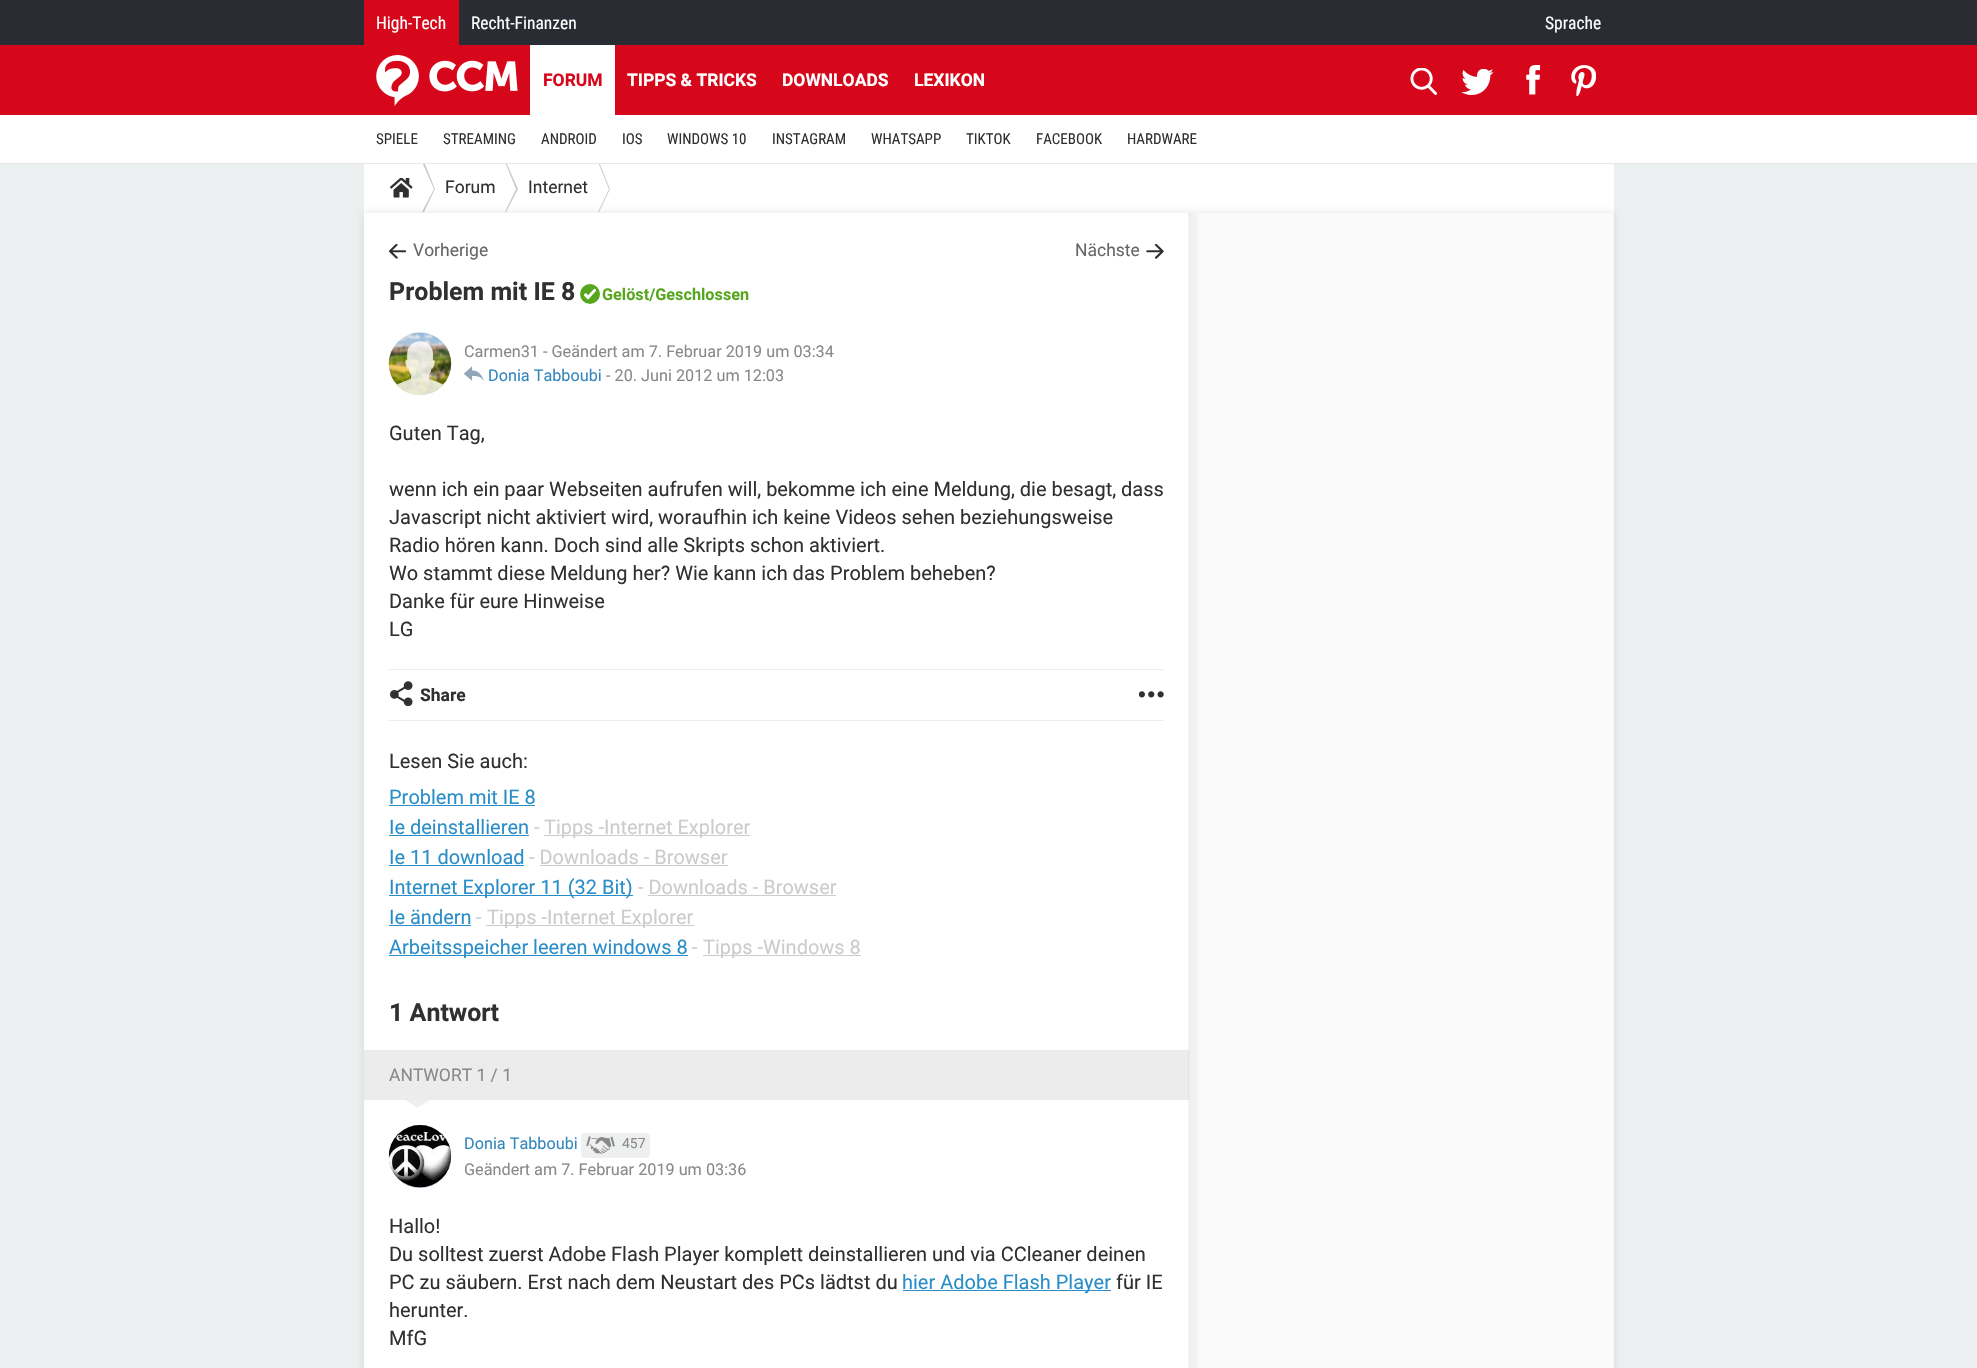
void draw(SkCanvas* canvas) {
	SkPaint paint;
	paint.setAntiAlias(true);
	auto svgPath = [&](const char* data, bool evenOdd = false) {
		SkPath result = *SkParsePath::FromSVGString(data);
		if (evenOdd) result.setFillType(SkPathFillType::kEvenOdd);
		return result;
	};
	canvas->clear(0xffedf0f0);
	paint.setColor(0xffffffff);
	canvas->drawRect(SkRect::MakeXYWH(364, 164, 1250, 49), paint);
	paint.setColor(0xffc9c9c9);
	canvas->drawPath(svgPath("M422 162H424L435 189L424 212H422L434 189Z", true), paint);
	canvas->drawPath(svgPath("M505 162H506L518 189L506 212H505L516 189Z", true), paint);
	canvas->drawPath(svgPath("M598 162H599L610 189L599 212H598L609 189Z", true), paint);
	paint.setColor(0xffe9e9e9);
	canvas->drawPath(svgPath("M0 162V164H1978V1V162Z"), paint);
	paint.setColor(0xffffffff);
	canvas->drawRect(SkRect::MakeXYWH(0, 115, 1977, 48), paint);
	paint.setColor(0xff292d33);
	canvas->drawRect(SkRect::MakeXYWH(0, 0, 1977, 45), paint);
	paint.setColor(0xffd6071b);
	canvas->drawRect(SkRect::MakeXYWH(364, 0, 95, 45), paint);
	SkFont f1(fontMgr->matchFamilyStyle("Roboto Condensed", SkFontStyle::Normal()), 17.5);
	f1.setSubpixel(true);
	paint.setColor(0xffffffff);
	canvas->drawString("High-Tech", 376, 29, f1, paint);
	canvas->drawString("Recht-Finanzen", 471, 29, f1, paint);
	canvas->drawString("Sprache", 1545, 29, f1, paint);
	paint.setColor(0xffd6071b);
	canvas->drawRect(SkRect::MakeXYWH(0, 45, 1977, 70), paint);
	canvas->drawImageRect(SkImages::DeferredFromEncodedData(SkData::MakeFromFileName("img1.png")), SkRect::MakeXYWH(376, 55, 142, 51), SkSamplingOptions());
	canvas->drawImageRect(SkImages::DeferredFromEncodedData(SkData::MakeFromFileName("img2.png")), SkRect::MakeXYWH(1410, 68, 27, 27), SkSamplingOptions());
	canvas->drawImageRect(SkImages::DeferredFromEncodedData(SkData::MakeFromFileName("img3.png")), SkRect::MakeXYWH(1461, 69, 33, 26), SkSamplingOptions());
	canvas->drawImageRect(SkImages::DeferredFromEncodedData(SkData::MakeFromFileName("img4.png")), SkRect::MakeXYWH(1526, 65, 14, 30), SkSamplingOptions());
	canvas->drawImageRect(SkImages::DeferredFromEncodedData(SkData::MakeFromFileName("img5.png")), SkRect::MakeXYWH(1571, 65, 25, 31), SkSamplingOptions());
	paint.setColor(0xffffffff);
	canvas->drawRect(SkRect::MakeXYWH(530, 45, 85, 70), paint);
	SkFont f2(fontMgr->matchFamilyStyle("Roboto", SkFontStyle::Bold()), 17.5);
	f2.setSubpixel(true);
	paint.setColor(0xffd6071b);
	canvas->drawString("FORUM", 543, 86, f2, paint);
	paint.setColor(0xffffffff);
	canvas->drawString("TIPPS & TRICKS", 627, 86, f2, paint);
	canvas->drawString("DOWNLOADS", 782, 86, f2, paint);
	canvas->drawString("LEXIKON", 914, 86, f2, paint);
	SkFont f3(fontMgr->matchFamilyStyle("Roboto Condensed", SkFontStyle::Normal()), 15);
	f3.setSubpixel(true);
	paint.setColor(0xff303030);
	canvas->drawString("SPIELE", 376, 144, f3, paint);
	canvas->drawString("STREAMING", 443, 144, f3, paint);
	canvas->drawString("ANDROID", 541, 144, f3, paint);
	canvas->drawString("IOS", 622, 144, f3, paint);
	canvas->drawString("WINDOWS 10", 667, 144, f3, paint);
	canvas->drawString("INSTAGRAM", 772, 144, f3, paint);
	canvas->drawString("WHATSAPP", 871, 144, f3, paint);
	canvas->drawString("TIKTOK", 966, 144, f3, paint);
	canvas->drawString("FACEBOOK", 1036, 144, f3, paint);
	canvas->drawString("HARDWARE", 1127, 144, f3, paint);
	canvas->drawImageRect(SkImages::DeferredFromEncodedData(SkData::MakeFromFileName("img6.png")), SkRect::MakeXYWH(390, 178, 23, 20), SkSamplingOptions());
	SkFont f4(fontMgr->matchFamilyStyle("Roboto", SkFontStyle::Normal()), 17.5);
	f4.setSubpixel(true);
	canvas->drawString("Forum", 445, 193, f4, paint);
	canvas->drawString("Internet", 528, 193, f4, paint);
	paint.setColor(0x1a000000);
	paint.setMaskFilter(SkMaskFilter::MakeBlur(kNormal_SkBlurStyle, 4));
	canvas->drawRect(SkRect::MakeXYWH(364, 213, 1250, 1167), paint);
	paint.setMaskFilter(nullptr);
	paint.setColor(0xffffffff);
	canvas->drawRect(SkRect::MakeXYWH(364, 213, 825, 1155), paint);
	canvas->drawImageRect(SkImages::DeferredFromEncodedData(SkData::MakeFromFileName("img7.png")), SkRect::MakeXYWH(389, 244, 17, 15), SkSamplingOptions());
	paint.setColor(0xff666666);
	canvas->drawString("Vorherige", 413, 256, f4, paint);
	canvas->drawString("Nächste", 1075, 256, f4, paint);
	canvas->drawImageRect(SkImages::DeferredFromEncodedData(SkData::MakeFromFileName("img8.png")), SkRect::MakeXYWH(1146, 244, 18, 15), SkSamplingOptions());
	SkFont f5(fontMgr->matchFamilyStyle("Roboto", SkFontStyle::Bold()), 25);
	f5.setSubpixel(true);
	paint.setColor(0xff303030);
	canvas->drawString("Problem mit IE 8", 389, 300, f5, paint);
	paint.setColor(0xff58a61e);
	canvas->drawCircle(590, 294, 10, paint);
	canvas->drawImageRect(SkImages::DeferredFromEncodedData(SkData::MakeFromFileName("img9.png")), SkRect::MakeXYWH(584, 288, 12, 12), SkSamplingOptions());
	SkFont f6(fontMgr->matchFamilyStyle("Roboto", SkFontStyle::Bold()), 16.25);
	f6.setSubpixel(true);
	canvas->drawString("Gelöst/Geschlossen", 602, 300, f6, paint);
	canvas->drawImageRect(SkImages::DeferredFromEncodedData(SkData::MakeFromFileName("img10.png")), SkRect::MakeXYWH(388, 332, 64, 63), SkSamplingOptions());
	canvas->drawImageRect(SkImages::DeferredFromEncodedData(SkData::MakeFromFileName("img11.png")), SkRect::MakeXYWH(397, 341, 46, 54), SkSamplingOptions());
	SkFont f7(fontMgr->matchFamilyStyle("Roboto", SkFontStyle::Normal()), 16.25);
	f7.setSubpixel(true);
	paint.setColor(0xff898989);
	canvas->drawString("Carmen31 - Geändert am 7. Februar 2019 um 03:34", 464, 357, f7, paint);
	canvas->drawImageRect(SkImages::DeferredFromEncodedData(SkData::MakeFromFileName("img12.png")), SkRect::MakeXYWH(464, 366, 20, 15), SkSamplingOptions());
	paint.setColor(0xff3487bc);
	canvas->drawString("Donia Tabboubi", 488, 381, f7, paint);
	paint.setColor(0xff898989);
	canvas->drawString("- 20. Juni 2012 um 12:03", 606, 381, f7, paint);
	SkFont f8(fontMgr->matchFamilyStyle("Roboto", SkFontStyle::Normal()), 20);
	f8.setSubpixel(true);
	paint.setColor(0xff303030);
	canvas->drawString("Guten Tag,", 389, 440, f8, paint);
	canvas->drawString("wenn ich ein paar Webseiten aufrufen will, bekomme ich eine Meldung, die besagt, dass", 389, 496, f8, paint);
	canvas->drawString("Javascript nicht aktiviert wird, woraufhin ich keine Videos sehen beziehungsweise", 389, 524, f8, paint);
	canvas->drawString("Radio hören kann. Doch sind alle Skripts schon aktiviert.", 389, 552, f8, paint);
	canvas->drawString("Wo stammt diese Meldung her? Wie kann ich das Problem beheben?", 389, 580, f8, paint);
	canvas->drawString("Danke für eure Hinweise", 389, 608, f8, paint);
	canvas->drawString("LG", 389, 636, f8, paint);
	paint.setColor(0xffececec);
	canvas->drawRect(SkRect::MakeXYWH(389, 669, 775, 1), paint);
	canvas->drawRect(SkRect::MakeXYWH(389, 720, 775, 1), paint);
	canvas->drawImageRect(SkImages::DeferredFromEncodedData(SkData::MakeFromFileName("img13.png")), SkRect::MakeXYWH(390, 681, 23, 25), SkSamplingOptions());
	paint.setColor(0xff303030);
	canvas->drawString("Share", 420, 701, f2, paint);
	canvas->drawImageRect(SkImages::DeferredFromEncodedData(SkData::MakeFromFileName("img14.png")), SkRect::MakeXYWH(1139, 691, 25, 7), SkSamplingOptions());
	canvas->drawString("Lesen Sie auch:", 389, 768, f8, paint);
	paint.setColor(0xff298ec8);
	canvas->drawString("Problem mit IE 8", 389, 804, f8, paint);
	canvas->drawRect(SkRect::MakeXYWH(389, 805, 146, 1), paint);
	canvas->drawString("Ie deinstallieren", 389, 834, f8, paint);
	canvas->drawRect(SkRect::MakeXYWH(389, 835, 140, 1), paint);
	paint.setColor(0xffcccccc);
	canvas->drawString("-", 534, 834, f8, paint);
	canvas->drawRect(SkRect::MakeXYWH(544, 835, 206, 1), paint);
	canvas->drawString("Tipps -Internet Explorer", 544, 834, f8, paint);
	paint.setColor(0xff298ec8);
	canvas->drawString("Ie 11 download", 389, 864, f8, paint);
	canvas->drawRect(SkRect::MakeXYWH(389, 865, 135, 1), paint);
	paint.setColor(0xffcccccc);
	canvas->drawString("- Downloads - Browser", 529, 864, f8, paint);
	canvas->drawRect(SkRect::MakeXYWH(540, 865, 188, 1), paint);
	paint.setColor(0xff298ec8);
	canvas->drawRect(SkRect::MakeXYWH(389, 895, 244, 1), paint);
	canvas->drawString("Internet Explorer 11 (32 Bit)", 389, 894, f8, paint);
	paint.setColor(0xffcccccc);
	canvas->drawString("- Downloads - Browser", 638, 894, f8, paint);
	canvas->drawRect(SkRect::MakeXYWH(648, 895, 188, 1), paint);
	paint.setColor(0xff298ec8);
	canvas->drawString("Ie ändern", 389, 924, f8, paint);
	canvas->drawRect(SkRect::MakeXYWH(389, 925, 82, 1), paint);
	paint.setColor(0xffcccccc);
	canvas->drawString("-", 476, 924, f8, paint);
	canvas->drawRect(SkRect::MakeXYWH(486, 925, 208, 1), paint);
	canvas->drawString("Tipps -Internet Explorer", 487, 924, f8, paint);
	paint.setColor(0xff298ec8);
	canvas->drawRect(SkRect::MakeXYWH(389, 955, 299, 1), paint);
	canvas->drawString("Arbeitsspeicher leeren windows 8", 389, 954, f8, paint);
	paint.setColor(0xffcccccc);
	canvas->drawString("-", 692, 954, f8, paint);
	canvas->drawRect(SkRect::MakeXYWH(703, 955, 158, 1), paint);
	canvas->drawString("Tipps -Windows 8", 703, 954, f8, paint);
	paint.setColor(0xff303030);
	canvas->drawString("1 Antwort", 389, 1021, f5, paint);
	paint.setColor(0xffececec);
	canvas->drawRect(SkRect::MakeXYWH(364, 1050, 825, 50), paint);
	paint.setColor(0xff898989);
	canvas->drawString("ANTWORT 1 / 1", 389, 1081, f4, paint);
	paint.setColor(0xffeef0ef);
	canvas->drawPath(svgPath("M405 1100H430L417.5 1107.5Z"), paint);
	paint.setColor(0xffb0becb);
	canvas->drawRoundRect(SkRect::MakeXYWH(389, 1125, 62, 63), 31, 31, paint);
	canvas->drawImageRect(SkImages::DeferredFromEncodedData(SkData::MakeFromFileName("img15.png")), SkRect::MakeXYWH(388, 1125, 64, 63), SkSamplingOptions());
	paint.setColor(0xff3487bc);
	canvas->drawString("Donia Tabboubi", 464, 1149, f7, paint);
	paint.setColor(0xffeef0ef);
	canvas->drawRoundRect(SkRect::MakeXYWH(581, 1133, 69, 25), 4, 4, paint);
	canvas->drawImageRect(SkImages::DeferredFromEncodedData(SkData::MakeFromFileName("img16.png")), SkRect::MakeXYWH(586, 1136, 29, 18), SkSamplingOptions());
	SkFont f9(fontMgr->matchFamilyStyle("Roboto", SkFontStyle::Normal()), 14);
	f9.setSubpixel(true);
	paint.setColor(0xff898989);
	canvas->drawString("457", 622, 1148, f9, paint);
	canvas->drawString("Geändert am 7. Februar 2019 um 03:36", 464, 1175, f7, paint);
	paint.setColor(0xff303030);
	canvas->drawString("Hallo!", 389, 1233, f8, paint);
	canvas->drawString("Du solltest zuerst Adobe Flash Player komplett deinstallieren und via CCleaner deinen", 389, 1261, f8, paint);
	canvas->drawString("PC zu säubern. Erst nach dem Neustart des PCs lädtst du", 389, 1289, f8, paint);
	paint.setColor(0xff298ec8);
	canvas->drawRect(SkRect::MakeXYWH(903, 1290, 208, 1), paint);
	canvas->drawString("hier Adobe Flash Player", 902, 1289, f8, paint);
	paint.setColor(0xff303030);
	canvas->drawString("für IE", 1116, 1289, f8, paint);
	canvas->drawString("herunter.", 389, 1317, f8, paint);
	canvas->drawString("MfG", 389, 1345, f8, paint);
	paint.setColor(0xfffafafa);
	canvas->drawRect(SkRect::MakeXYWH(1189, 213, 425, 1155), paint);
	{
		const SkColor colors[] = {0x0d000000, 0x00000000};
		const float stops[] = {0, 1};
		const SkPoint ends[] = {{1187, 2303}, {1206, 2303}};
		paint.setShader(SkGradientShader::MakeLinear(ends, colors, stops, 2, SkTileMode::kClamp));
		paint.setAlpha(255);
	}
	canvas->drawRect(SkRect::MakeXYWH(1188, 213, 10, 1155), paint);
}
